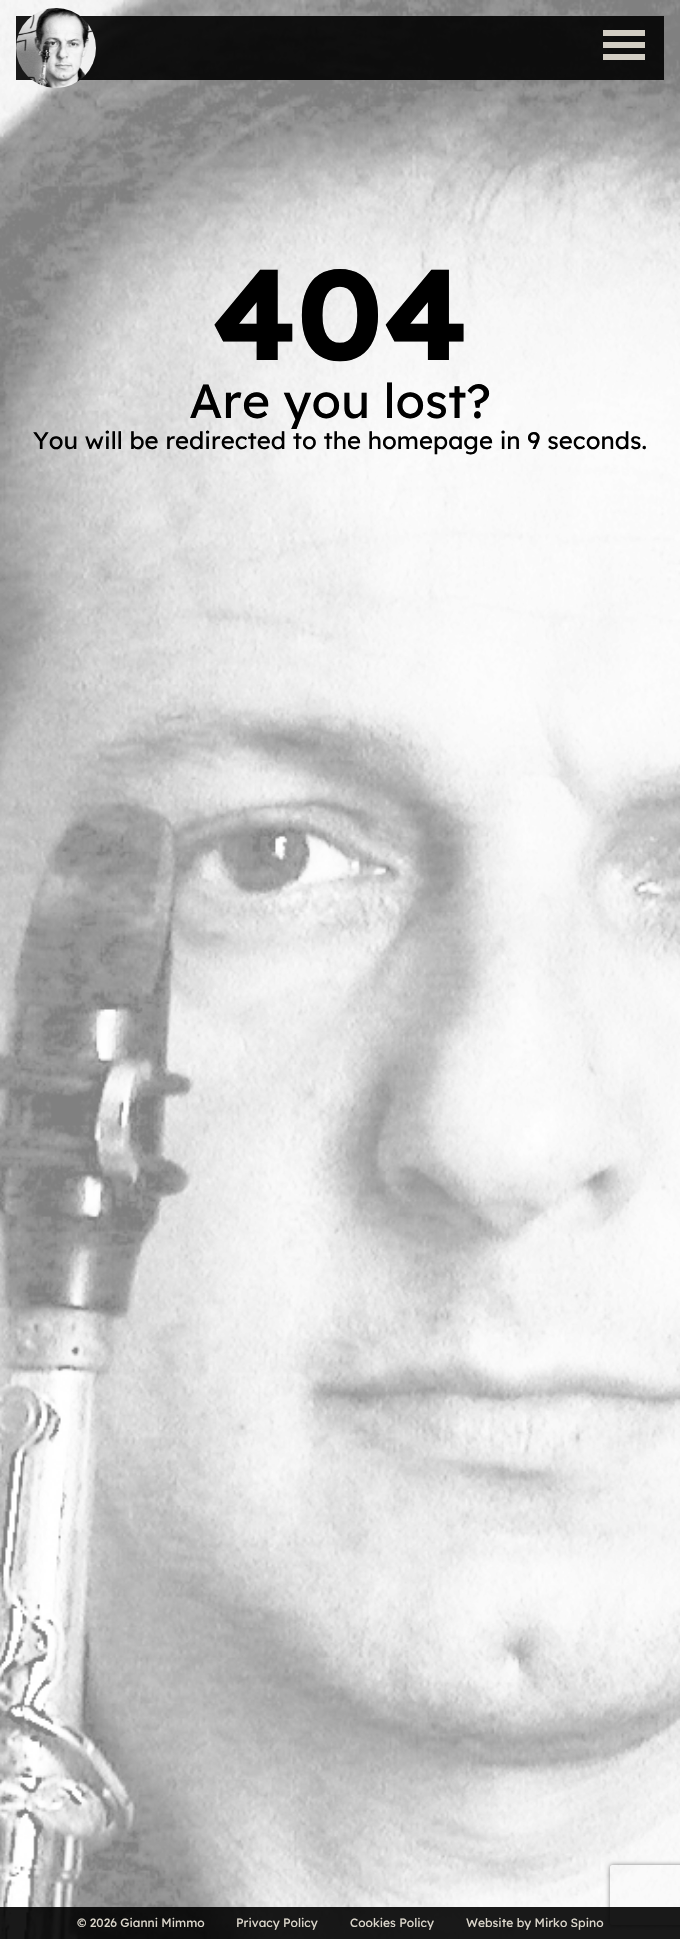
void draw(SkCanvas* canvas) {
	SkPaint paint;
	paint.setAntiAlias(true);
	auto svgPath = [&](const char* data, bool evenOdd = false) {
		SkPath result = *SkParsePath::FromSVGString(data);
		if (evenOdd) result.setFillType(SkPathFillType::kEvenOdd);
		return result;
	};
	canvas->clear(0xffffffff);
	canvas->drawImageRect(SkImages::DeferredFromEncodedData(SkData::MakeFromFileName("img1.png")), SkRect::MakeXYWH(0, 0, 680, 1939), SkSamplingOptions());
	paint.setColor(0xe6000000);
	canvas->drawRect(SkRect::MakeXYWH(16, 16, 648, 64), paint);
	canvas->drawImageRect(SkImages::DeferredFromEncodedData(SkData::MakeFromFileName("img2.png")), SkRect::MakeXYWH(16, 8, 80, 80), SkSamplingOptions());
	paint.setColor(0xf2dcd7cc);
	canvas->drawPath(svgPath("M603 30V36H645V30ZM603 42V48H645V42ZM603 54V60H645V54Z"), paint);
	SkFont f1(fontMgr->matchFamilyStyle("Lexend", SkFontStyle::Bold()), 128);
	f1.setSubpixel(true);
	paint.setColor(0xff000000);
	canvas->drawString("404", 212, 360, f1, paint);
	SkFont f2(fontMgr->matchFamilyStyle("Lexend", SkFontStyle::Normal()), 48);
	f2.setSubpixel(true);
	canvas->drawString("Are you lost?", 189, 418, f2, paint);
	SkFont f3(fontMgr->matchFamilyStyle("Lexend", SkFontStyle::Normal()), 24);
	f3.setSubpixel(true);
	canvas->drawString("You will be redirected to the homepage in 9 seconds.", 33, 449, f3, paint);
	canvas->save();
	canvas->clipPath(svgPath("M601 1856H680V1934H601ZM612 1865H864C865 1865 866 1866 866 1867V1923C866 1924 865 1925 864 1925H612C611 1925 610 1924 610 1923V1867C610 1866 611 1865 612 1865Z", true), true);
	paint.setColor(0xff808080);
	paint.setMaskFilter(SkMaskFilter::MakeBlur(kNormal_SkBlurStyle, 2.5));
	canvas->drawRoundRect(SkRect::MakeXYWH(610, 1865, 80, 60), 2, 2, paint);
	paint.setMaskFilter(nullptr);
	canvas->restore();
	paint.setColor(0xe6000000);
	canvas->drawRect(SkRect::MakeXYWH(0, 1907, 680, 32), paint);
	SkFont f4(fontMgr->matchFamilyStyle("Lexend", SkFontStyle::Normal()), 12);
	f4.setSubpixel(true);
	paint.setColor(0xffdcd7cc);
	canvas->drawString("© 2026 Gianni Mimmo", 77, 1927, f4, paint);
	canvas->drawString("Privacy Policy", 236, 1927, f4, paint);
	canvas->drawString("Cookies Policy", 350, 1927, f4, paint);
	canvas->drawString("Website by Mirko Spino", 466, 1927, f4, paint);
}
